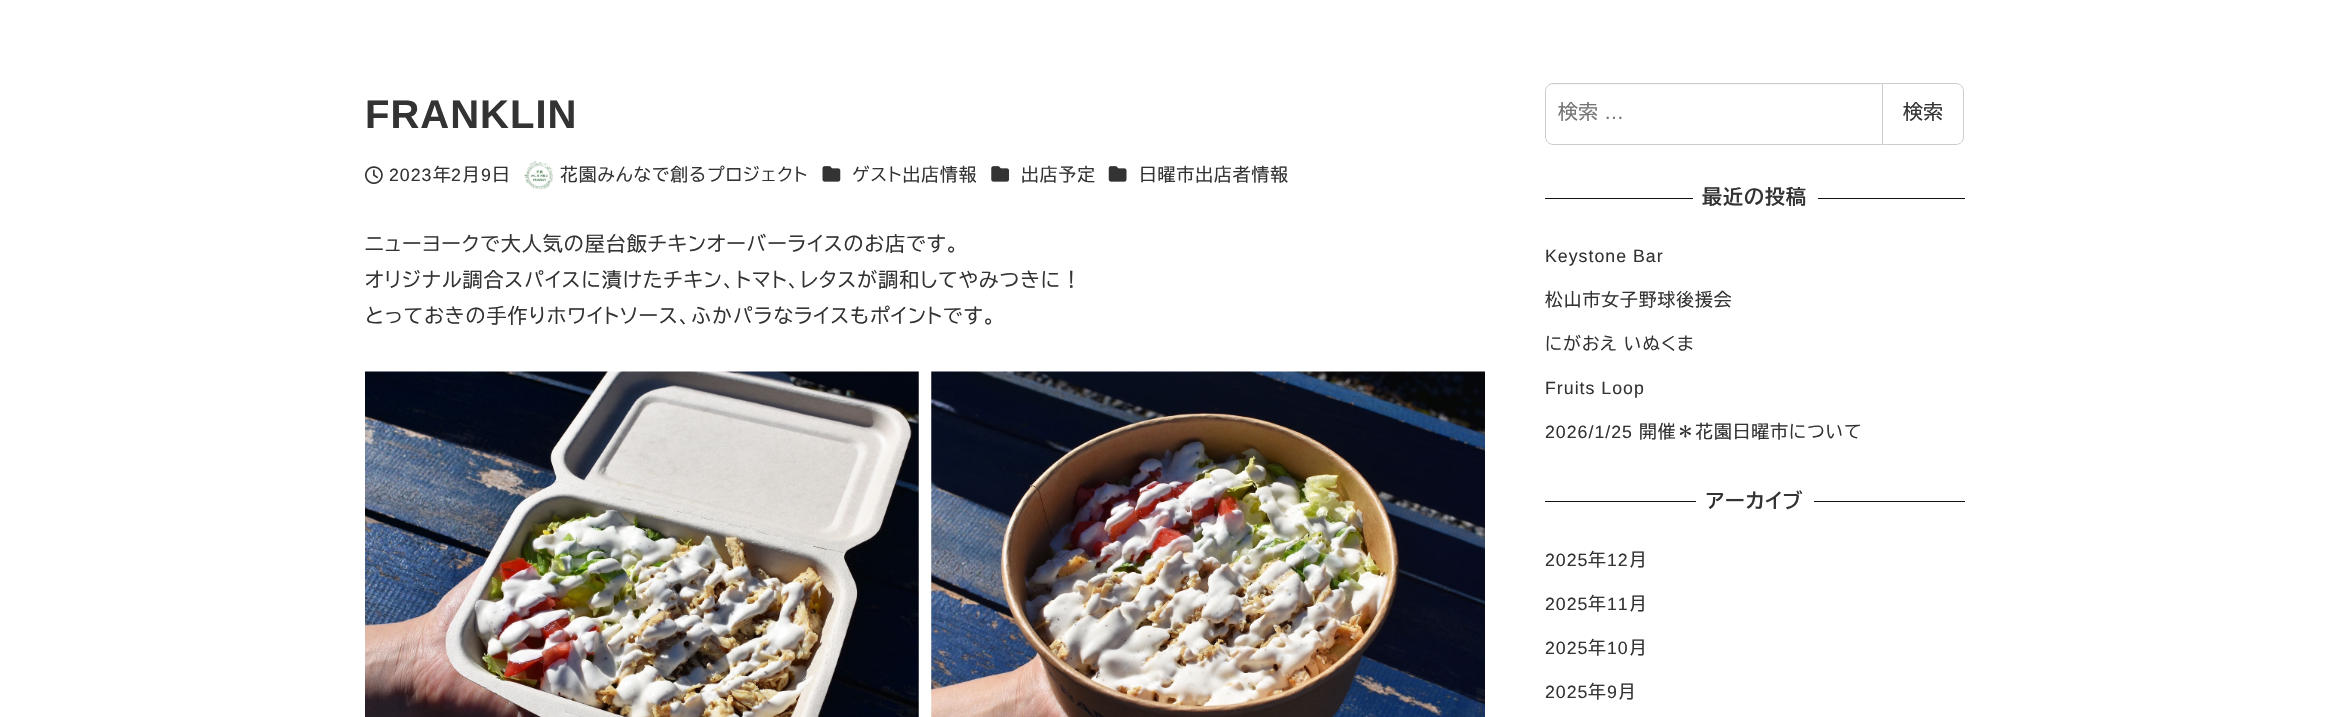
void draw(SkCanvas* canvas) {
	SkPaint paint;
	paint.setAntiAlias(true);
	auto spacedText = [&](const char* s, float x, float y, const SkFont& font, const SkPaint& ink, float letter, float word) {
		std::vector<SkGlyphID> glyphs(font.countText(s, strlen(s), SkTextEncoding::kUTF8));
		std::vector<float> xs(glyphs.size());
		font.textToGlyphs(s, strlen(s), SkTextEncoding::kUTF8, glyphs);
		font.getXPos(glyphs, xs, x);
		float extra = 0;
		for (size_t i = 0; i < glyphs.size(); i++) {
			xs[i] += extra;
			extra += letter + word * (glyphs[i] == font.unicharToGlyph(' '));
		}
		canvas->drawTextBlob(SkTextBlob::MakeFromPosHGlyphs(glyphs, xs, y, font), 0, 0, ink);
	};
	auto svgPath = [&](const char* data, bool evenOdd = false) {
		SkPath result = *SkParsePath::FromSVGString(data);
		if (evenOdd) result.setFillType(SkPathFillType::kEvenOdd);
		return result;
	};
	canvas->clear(0xffffffff);
	SkFont f1(fontMgr->matchFamilyStyle("Liberation Sans", SkFontStyle::Bold()), 40);
	f1.setSubpixel(true);
	paint.setColor(0xff333333);
	spacedText("FRANKLIN", 365, 128, f1, paint, 1, 0);
	canvas->drawImageRect(SkImages::DeferredFromEncodedData(SkData::MakeFromFileName("img1.png")), SkRect::MakeXYWH(365, 166, 18, 18), SkSamplingOptions());
	SkFont f2(fontMgr->matchFamilyStyle("Liberation Sans", SkFontStyle::Normal()), 17.75);
	f2.setSubpixel(true);
	spacedText("2023", 389, 181, f2, paint, 1, 0);
	SkFont f3(fontMgr->matchFamilyStyle("BIZ UDPGothic", SkFontStyle::Normal()), 17.75);
	f3.setSubpixel(true);
	spacedText("年", 433, 181, f3, paint, 1, 0);
	spacedText("2", 451, 181, f2, paint, 1, 0);
	spacedText("月", 462, 181, f3, paint, 1, 0);
	spacedText("9", 481, 181, f2, paint, 1, 0);
	spacedText("日", 492, 181, f3, paint, 1, 0);
	canvas->drawImageRect(SkImages::DeferredFromEncodedData(SkData::MakeFromFileName("img2.png")), SkRect::MakeXYWH(524, 161, 29, 29), SkSamplingOptions());
	spacedText("花園みんなで創るプロジェクト", 560, 181, f3, paint, 1, 0);
	canvas->drawImageRect(SkImages::DeferredFromEncodedData(SkData::MakeFromFileName("img3.png")), SkRect::MakeXYWH(822, 166, 19, 16), SkSamplingOptions());
	spacedText("ゲスト出店情報", 852, 181, f3, paint, 1, 0);
	canvas->drawImageRect(SkImages::DeferredFromEncodedData(SkData::MakeFromFileName("img4.png")), SkRect::MakeXYWH(991, 166, 19, 16), SkSamplingOptions());
	spacedText("出店予定", 1021, 181, f3, paint, 1, 0);
	canvas->drawImageRect(SkImages::DeferredFromEncodedData(SkData::MakeFromFileName("img5.png")), SkRect::MakeXYWH(1108, 166, 19, 16), SkSamplingOptions());
	spacedText("日曜市出店者情報", 1139, 181, f3, paint, 1, 0);
	SkFont f4(fontMgr->matchFamilyStyle("BIZ UDPGothic", SkFontStyle::Normal()), 20);
	f4.setSubpixel(true);
	spacedText("ニューヨークで大人気の屋台飯チキンオーバーライスのお店です。", 365, 251, f4, paint, 1, 0);
	spacedText("オリジナル調合スパイスに漬けたチキン、トマト、レタスが調和してやみつきに！", 365, 287, f4, paint, 1, 0);
	spacedText("とっておきの手作りホワイトソース、ふかパラなライスもポイントです。", 365, 323, f4, paint, 1, 0);
	canvas->drawImageRect(SkImages::DeferredFromEncodedData(SkData::MakeFromFileName("img6.png")), SkRect::MakeXYWH(365, 371, 554, 346), SkSamplingOptions());
	canvas->drawImageRect(SkImages::DeferredFromEncodedData(SkData::MakeFromFileName("img7.png")), SkRect::MakeXYWH(931, 371, 554, 346), SkSamplingOptions());
	paint.setStroke(true);
	paint.setStrokeWidth(1);
	paint.setColor(0xffcccccc);
	canvas->drawPath(svgPath("M1881.5 83.5H1956C1960 83.5 1963.5 87 1963.5 91V137C1963.5 141 1960 144.5 1956 144.5H1881.5Z"), paint);
	paint.setStroke(false);
	paint.setColor(0xffffffff);
	canvas->drawPath(svgPath("M1553 83H1883V145H1553C1548.5 145 1545 141.5 1545 137V91C1545 86.5 1548.5 83 1553 83Z"), paint);
	paint.setColor(0xfff6f6f6);
	canvas->drawPath(svgPath("M1552 85H1881V84H1552C1549 84 1546 87 1546 90V91C1546 88 1549 85 1552 85Z"), paint);
	paint.setStroke(true);
	paint.setColor(0xffcccccc);
	canvas->drawPath(svgPath("M1553 83.5H1882.5V144.5H1553C1549 144.5 1545.5 141 1545.5 137V91C1545.5 87 1549 83.5 1553 83.5Z"), paint);
	paint.setStroke(false);
	paint.setColor(0xff757575);
	canvas->drawString("検索", 1558, 119, f4, paint);
	SkFont f5(fontMgr->matchFamilyStyle("Liberation Sans", SkFontStyle::Normal()), 20);
	f5.setSubpixel(true);
	canvas->drawString("…", 1604, 119, f5, paint);
	paint.setColor(0xff333333);
	canvas->drawString("検索", 1903, 119, f4, paint);
	paint.setColor(0xff111111);
	canvas->drawRect(SkRect::MakeXYWH(1545, 198, 148, 1), paint);
	SkFont f6(fontMgr->matchFamilyStyle("BIZ UDPGothic", SkFontStyle::Bold()), 20);
	f6.setSubpixel(true);
	paint.setColor(0xff333333);
	spacedText("最近の投稿", 1702, 204, f6, paint, 1, 0);
	paint.setColor(0xff111111);
	canvas->drawRect(SkRect::MakeXYWH(1818, 198, 147, 1), paint);
	paint.setColor(0xff333333);
	spacedText("Keystone Bar", 1545, 262, f2, paint, 1, 0);
	spacedText("松山市女子野球後援会", 1545, 306, f3, paint, 1, 0);
	spacedText("にがおえ いぬくま", 1545, 350, f3, paint, 1, -1);
	spacedText("Fruits Loop", 1545, 394, f2, paint, 1, 0);
	spacedText("2026/1/25", 1545, 438, f2, paint, 1, 0);
	spacedText("開催＊花園日曜市について", 1639, 438, f3, paint, 1, 0);
	paint.setColor(0xff111111);
	canvas->drawRect(SkRect::MakeXYWH(1545, 501, 151, 1), paint);
	paint.setColor(0xff333333);
	spacedText("アーカイブ", 1706, 508, f6, paint, 1, 0);
	paint.setColor(0xff111111);
	canvas->drawRect(SkRect::MakeXYWH(1814, 501, 151, 1), paint);
	paint.setColor(0xff333333);
	spacedText("2025", 1545, 566, f2, paint, 1, 0);
	spacedText("年", 1588, 566, f3, paint, 1, 0);
	spacedText("12", 1607, 566, f2, paint, 1, 0);
	spacedText("月", 1629, 566, f3, paint, 1, 0);
	spacedText("2025", 1545, 610, f2, paint, 1, 0);
	spacedText("年", 1588, 610, f3, paint, 1, 0);
	spacedText("11", 1607, 610, f2, paint, 1, 0);
	spacedText("月", 1629, 610, f3, paint, 1, 0);
	spacedText("2025", 1545, 654, f2, paint, 1, 0);
	spacedText("年", 1588, 654, f3, paint, 1, 0);
	spacedText("10", 1607, 654, f2, paint, 1, 0);
	spacedText("月", 1629, 654, f3, paint, 1, 0);
	spacedText("2025", 1545, 698, f2, paint, 1, 0);
	spacedText("年", 1588, 698, f3, paint, 1, 0);
	spacedText("9", 1607, 698, f2, paint, 1, 0);
	spacedText("月", 1618, 698, f3, paint, 1, 0);
}
